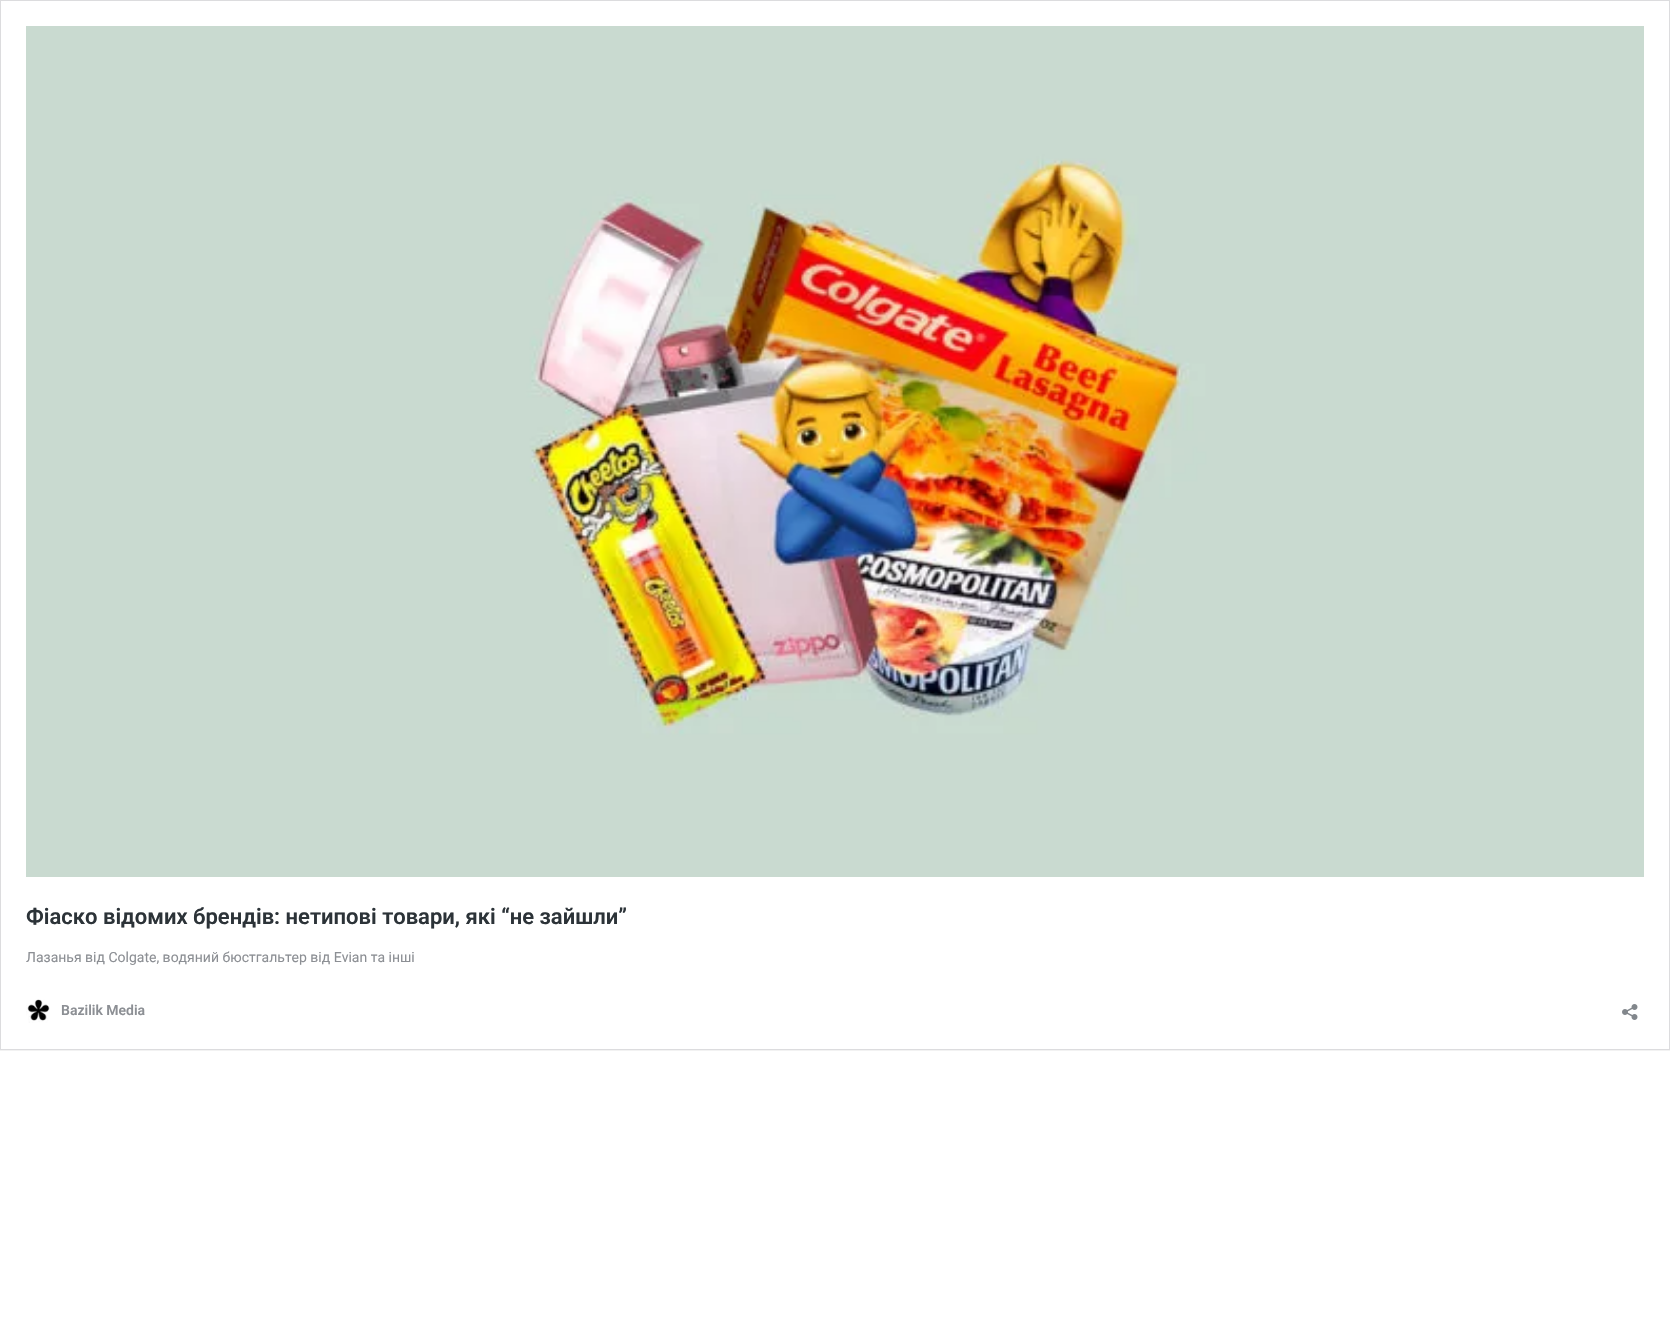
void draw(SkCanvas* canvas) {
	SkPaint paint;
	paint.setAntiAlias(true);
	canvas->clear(0xffffffff);
	canvas->save();
	canvas->clipRect(SkRect::MakeXYWH(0, 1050, 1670, 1));
	paint.setColor(0x0d000000);
	paint.setMaskFilter(SkMaskFilter::MakeBlur(kNormal_SkBlurStyle, 0.5));
	canvas->drawRect(SkRect::MakeXYWH(0, 1, 1670, 1050), paint);
	paint.setMaskFilter(nullptr);
	canvas->restore();
	paint.setStroke(true);
	paint.setStrokeWidth(1);
	paint.setColor(0xffdcdcde);
	canvas->drawRect(SkRect::MakeXYWH(0.5, 0.5, 1669, 1049), paint);
	canvas->drawImageRect(SkImages::DeferredFromEncodedData(SkData::MakeFromFileName("img1.png")), SkRect::MakeXYWH(26, 26, 1618, 851), SkSamplingOptions());
	SkFont f1(fontMgr->matchFamilyStyle("Roboto", SkFontStyle(600, SkFontStyle::kNormal_Width, SkFontStyle::kUpright_Slant)), 22);
	f1.setSubpixel(true);
	paint.setStroke(false);
	paint.setColor(0xff2c3338);
	canvas->drawString("Фіаско відомих брендів: нетипові товари, які “не зайшли”", 26, 924, f1, paint);
	SkFont f2(fontMgr->matchFamilyStyle("Roboto", SkFontStyle::Normal()), 14);
	f2.setSubpixel(true);
	paint.setColor(0xff8c8f94);
	canvas->drawString("Лазанья від Colgate, водяний бюстгальтер від Evian та інші", 26, 962, f2, paint);
	canvas->drawImageRect(SkImages::DeferredFromEncodedData(SkData::MakeFromFileName("img2.png")), SkRect::MakeXYWH(26, 999, 24, 24), SkSamplingOptions());
	SkFont f3(fontMgr->matchFamilyStyle("Roboto", SkFontStyle(600, SkFontStyle::kNormal_Width, SkFontStyle::kUpright_Slant)), 14);
	f3.setSubpixel(true);
	canvas->drawString("Bazilik Media", 61, 1015, f3, paint);
	canvas->drawImageRect(SkImages::DeferredFromEncodedData(SkData::MakeFromFileName("img3.png")), SkRect::MakeXYWH(1622, 1004, 16, 16), SkSamplingOptions());
}
